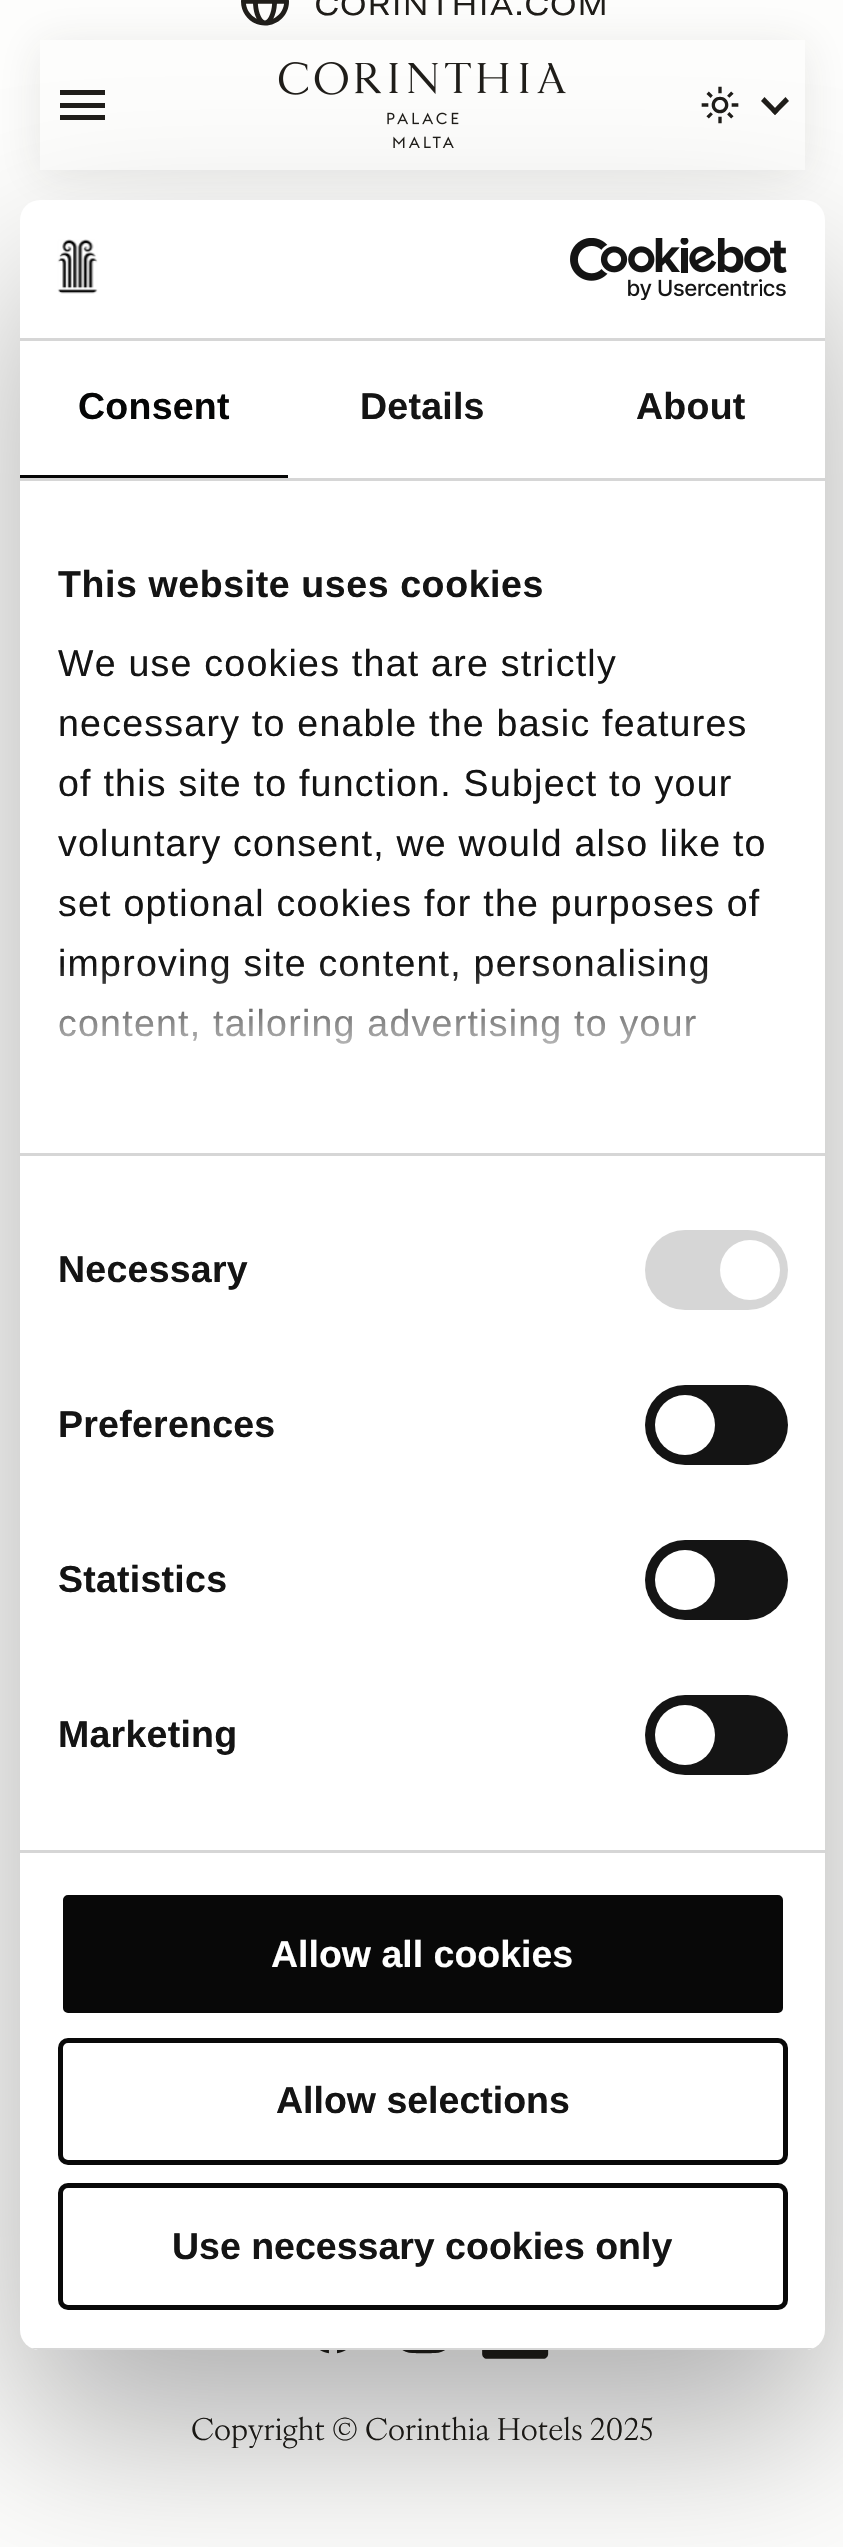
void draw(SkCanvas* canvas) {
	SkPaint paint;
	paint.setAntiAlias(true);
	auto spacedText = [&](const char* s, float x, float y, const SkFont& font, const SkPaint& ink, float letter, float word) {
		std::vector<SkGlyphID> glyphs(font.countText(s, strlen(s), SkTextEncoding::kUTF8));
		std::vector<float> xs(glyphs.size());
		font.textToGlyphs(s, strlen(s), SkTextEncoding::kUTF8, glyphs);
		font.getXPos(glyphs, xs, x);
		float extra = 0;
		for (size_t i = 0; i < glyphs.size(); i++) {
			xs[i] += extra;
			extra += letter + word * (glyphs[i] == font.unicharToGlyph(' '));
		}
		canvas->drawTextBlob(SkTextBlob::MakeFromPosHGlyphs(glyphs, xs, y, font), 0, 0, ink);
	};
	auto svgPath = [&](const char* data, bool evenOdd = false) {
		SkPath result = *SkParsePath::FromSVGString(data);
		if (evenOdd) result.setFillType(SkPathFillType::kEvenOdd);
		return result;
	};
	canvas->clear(0xfffdfdfc);
	canvas->drawImageRect(SkImages::DeferredFromEncodedData(SkData::MakeFromFileName("img3.png")), SkRect::MakeXYWH(241, 0, 48, 26), SkSamplingOptions());
	paint.setColor(0x1a332f29);
	paint.setMaskFilter(SkMaskFilter::MakeBlur(kNormal_SkBlurStyle, 22.5));
	canvas->drawRect(SkRect::MakeXYWH(40, 45, 765, 130), paint);
	paint.setMaskFilter(nullptr);
	paint.setColor(0xfffdfdfc);
	canvas->drawRect(SkRect::MakeXYWH(40, 40, 765, 130), paint);
	canvas->drawImageRect(SkImages::DeferredFromEncodedData(SkData::MakeFromFileName("img1.png")), SkRect::MakeXYWH(278, 62, 288, 86), SkSamplingOptions());
	paint.setColor(0xff1f1d19);
	canvas->drawRect(SkRect::MakeXYWH(60, 90, 45, 5), paint);
	canvas->drawRect(SkRect::MakeXYWH(60, 103, 45, 5), paint);
	canvas->drawRect(SkRect::MakeXYWH(60, 115, 45, 5), paint);
	canvas->drawImageRect(SkImages::DeferredFromEncodedData(SkData::MakeFromFileName("img2.png")), SkRect::MakeXYWH(701, 86, 38, 38), SkSamplingOptions());
	canvas->drawPath(svgPath("M785.5 97L789 101L775 115L771.5 111.5Z"), paint);
	canvas->drawPath(svgPath("M764.5 97L778.5 111.5L775 115L761 101Z"), paint);
	SkFont f1(fontMgr->matchFamilyStyle("GT America", SkFontStyle::Normal()), 30);
	f1.setSubpixel(true);
	spacedText("CORINTHIA.COM", 315, 15, f1, paint, 1.5, 0);
	canvas->drawImageRect(SkImages::DeferredFromEncodedData(SkData::MakeFromFileName("img4.png")), SkRect::MakeXYWH(320, 2350, 26, 4), SkSamplingOptions());
	canvas->drawImageRect(SkImages::DeferredFromEncodedData(SkData::MakeFromFileName("img5.png")), SkRect::MakeXYWH(402, 2350, 43, 4), SkSamplingOptions());
	canvas->drawImageRect(SkImages::DeferredFromEncodedData(SkData::MakeFromFileName("img6.png")), SkRect::MakeXYWH(482, 2350, 67, 9), SkSamplingOptions());
	SkFont f2(fontMgr->matchFamilyStyle("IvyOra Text", SkFontStyle::Normal()), 30);
	f2.setSubpixel(true);
	canvas->drawString("Copyright © Corinthia Hotels 2025", 191, 2440, f2, paint);
	paint.setColor(0x4d000000);
	paint.setMaskFilter(SkMaskFilter::MakeBlur(kNormal_SkBlurStyle, 85));
	canvas->drawRoundRect(SkRect::MakeXYWH(20, 280, 805, 2150), 20, 20, paint);
	paint.setMaskFilter(nullptr);
	paint.setColor(0xffffffff);
	canvas->drawRoundRect(SkRect::MakeXYWH(20, 200, 805, 2150), 20, 20, paint);
	paint.setColor(0xffd6d6d6);
	canvas->drawRect(SkRect::MakeXYWH(20, 338, 805, 3), paint);
	canvas->drawImageRect(SkImages::DeferredFromEncodedData(SkData::MakeFromFileName("img7.png")), SkRect::MakeXYWH(57, 239, 41, 55), SkSamplingOptions());
	canvas->drawImageRect(SkImages::DeferredFromEncodedData(SkData::MakeFromFileName("img8.png")), SkRect::MakeXYWH(570, 238, 217, 62), SkSamplingOptions());
	canvas->drawRect(SkRect::MakeXYWH(20, 478, 805, 3), paint);
	paint.setColor(0xff050606);
	canvas->drawRect(SkRect::MakeXYWH(20, 475, 268, 3), paint);
	SkFont f3(fontMgr->matchFamilyStyle("Liberation Sans", SkFontStyle::Bold()), 37.5);
	f3.setSubpixel(true);
	spacedText("Consent", 78, 419, f3, paint, 0.25, 0);
	paint.setColor(0xff141414);
	spacedText("Details", 360, 419, f3, paint, 0.25, 0);
	spacedText("About", 636, 419, f3, paint, 0.25, 0);
	paint.setColor(0xffd6d6d6);
	canvas->drawRect(SkRect::MakeXYWH(20, 1153, 805, 3), paint);
	paint.setColor(0xff141414);
	spacedText("This website uses cookies", 58, 597, f3, paint, 0.6, 0);
	SkFont f4(fontMgr->matchFamilyStyle("Liberation Sans", SkFontStyle::Normal()), 37.5);
	f4.setSubpixel(true);
	spacedText("We use cookies that are strictly", 58, 676, f4, paint, 1.25, 0);
	spacedText("necessary to enable the basic features", 58, 736, f4, paint, 1.25, 0);
	spacedText("of this site to function. Subject to your", 58, 796, f4, paint, 1.25, 0);
	spacedText("voluntary consent, we would also like to", 58, 856, f4, paint, 1.25, 0);
	spacedText("set optional cookies for the purposes of", 58, 916, f4, paint, 1.25, 0);
	spacedText("improving site content, personalising", 58, 976, f4, paint, 1.25, 0);
	spacedText("content, tailoring advertising to your", 58, 1036, f4, paint, 1.25, 0);
	{
		const SkColor colors[] = {0xffffffff, 0xccffffff, 0x00ffffff};
		const float stops[] = {0, 0.5, 1};
		const SkPoint ends[] = {{406, 1152}, {406, 964}};
		paint.setShader(SkGradientShader::MakeLinear(ends, colors, stops, 3, SkTileMode::kClamp));
		paint.setAlpha(255);
	}
	canvas->drawRect(SkRect::MakeXYWH(59, 967, 648, 77), paint);
	paint.setShader(nullptr);
	paint.setColor(0xffd6d6d6);
	canvas->drawRect(SkRect::MakeXYWH(20, 1850, 805, 3), paint);
	paint.setColor(0xff141414);
	spacedText("Necessary", 58, 1282, f3, paint, 0.25, 0);
	paint.setColor(0xffd6d6d6);
	canvas->drawRoundRect(SkRect::MakeXYWH(645, 1230, 143, 80), 40, 40, paint);
	paint.setColor(0xffffffff);
	canvas->drawCircle(750, 1270, 30, paint);
	paint.setColor(0xff141414);
	spacedText("Preferences", 58, 1437, f3, paint, 0.25, 0);
	canvas->drawRoundRect(SkRect::MakeXYWH(645, 1385, 143, 80), 40, 40, paint);
	paint.setColor(0xffffffff);
	canvas->drawCircle(685, 1425, 30, paint);
	paint.setColor(0xff141414);
	spacedText("Statistics", 58, 1592, f3, paint, 0.25, 0);
	canvas->drawRoundRect(SkRect::MakeXYWH(645, 1540, 143, 80), 40, 40, paint);
	paint.setColor(0xffffffff);
	canvas->drawCircle(685, 1580, 30, paint);
	paint.setColor(0xff141414);
	spacedText("Marketing", 58, 1747, f3, paint, 0.25, 0);
	canvas->drawRoundRect(SkRect::MakeXYWH(645, 1695, 143, 80), 40, 40, paint);
	paint.setColor(0xffffffff);
	canvas->drawCircle(685, 1735, 30, paint);
	canvas->save();
	canvas->clipPath(svgPath("M40 200H805C816 200 825 209 825 220V2330C825 2341 816 2350 805 2350H40C29 2350 20 2341 20 2330V220C20 209 29 200 40 200Z"), true);
	paint.setColor(0xffd6d6d6);
	canvas->drawRect(SkRect::MakeXYWH(31, 2348, 783, 2), paint);
	canvas->restore();
	paint.setColor(0xff080808);
	canvas->drawRoundRect(SkRect::MakeXYWH(60.5, 1892.5, 725, 123), 7.5, 7.5, paint);
	paint.setStroke(true);
	paint.setStrokeWidth(5);
	paint.setColor(0xffffffff);
	canvas->drawRoundRect(SkRect::MakeXYWH(60.5, 1892.5, 725, 123), 7.5, 7.5, paint);
	paint.setStroke(false);
	canvas->drawString("Allow all cookies", 271, 1967, f3, paint);
	paint.setStroke(true);
	paint.setColor(0xff090909);
	canvas->drawRoundRect(SkRect::MakeXYWH(60.5, 2040.5, 725, 122), 7.5, 7.5, paint);
	paint.setStroke(false);
	paint.setColor(0xff141414);
	canvas->drawString("Allow selections", 276, 2113, f3, paint);
	paint.setStroke(true);
	paint.setColor(0xff090909);
	canvas->drawRoundRect(SkRect::MakeXYWH(60.5, 2185.5, 725, 122), 7.5, 7.5, paint);
	paint.setStroke(false);
	paint.setColor(0xff141414);
	canvas->drawString("Use necessary cookies only", 172, 2259, f3, paint);
}
